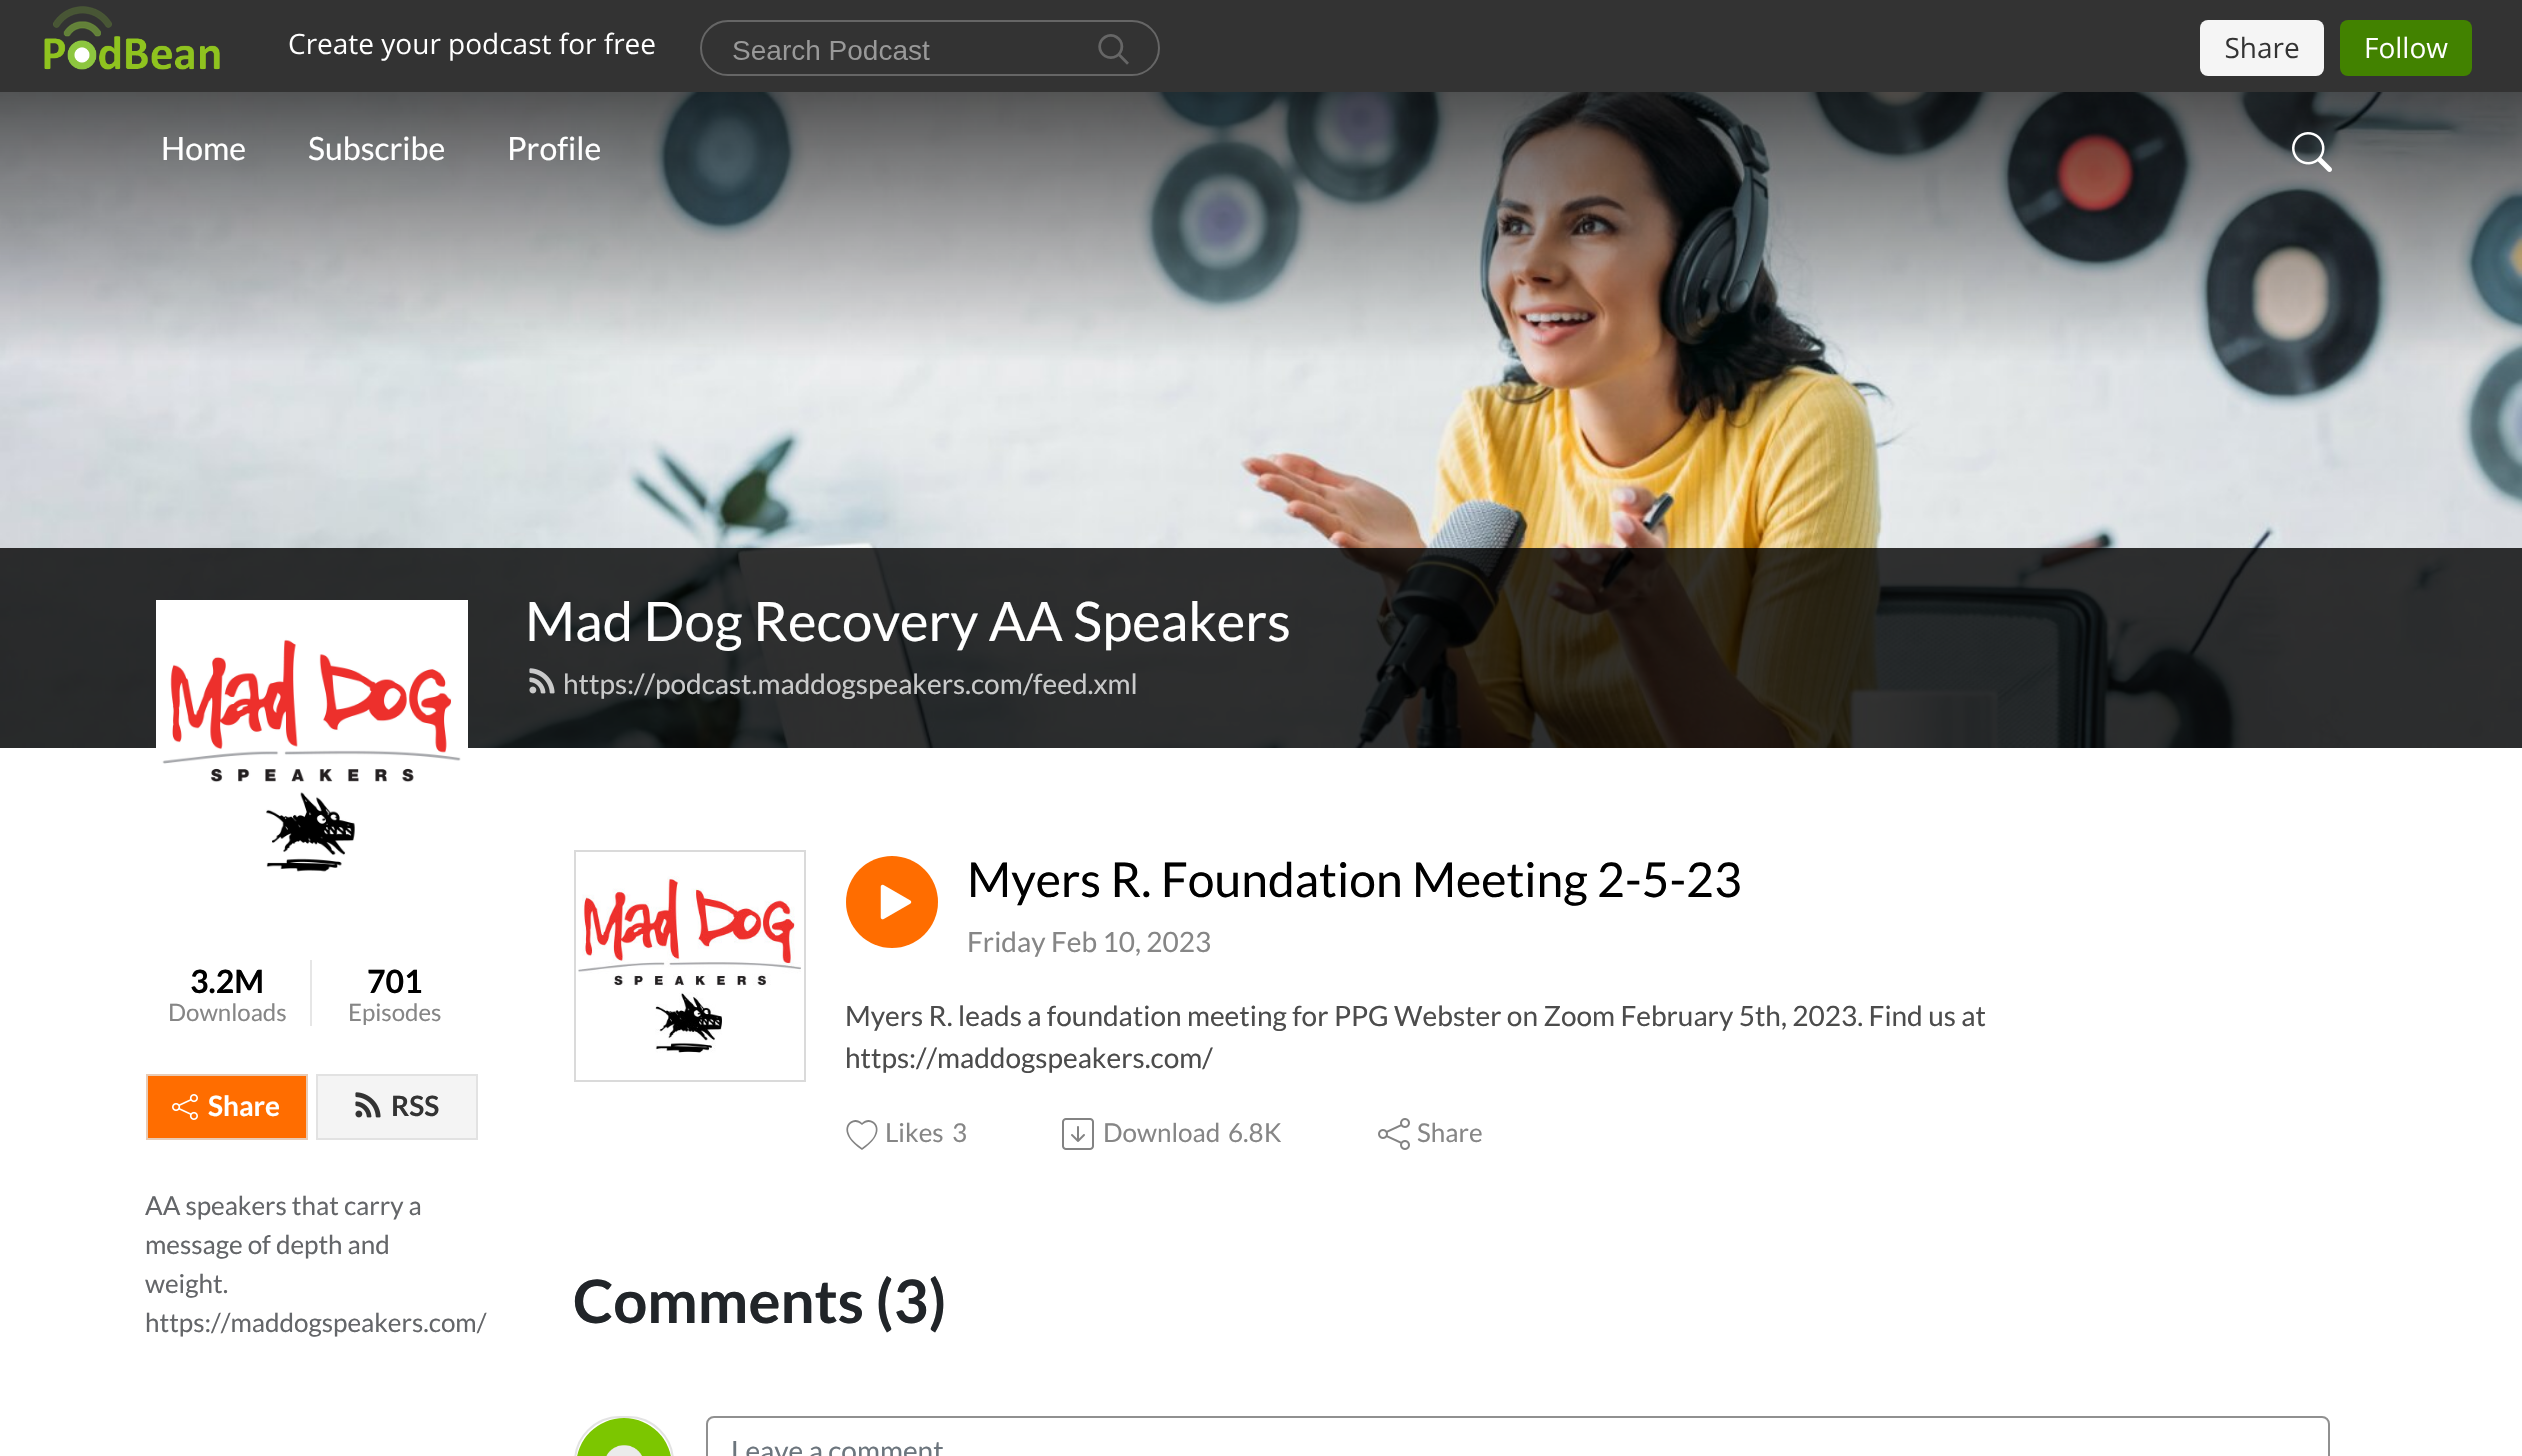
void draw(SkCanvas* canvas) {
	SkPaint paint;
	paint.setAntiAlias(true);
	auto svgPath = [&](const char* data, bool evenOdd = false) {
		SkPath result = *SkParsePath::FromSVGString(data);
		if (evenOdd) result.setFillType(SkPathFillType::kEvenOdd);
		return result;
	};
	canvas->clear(0xffffffff);
	paint.setColor(0xff333333);
	canvas->drawRect(SkRect::MakeXYWH(0, 0, 2522, 92), paint);
	canvas->drawImageRect(SkImages::DeferredFromEncodedData(SkData::MakeFromFileName("img1.png")), SkRect::MakeXYWH(44, 6, 2428, 70), SkSamplingOptions());
	canvas->drawImageRect(SkImages::DeferredFromEncodedData(SkData::MakeFromFileName("img3.png")), SkRect::MakeXYWH(0, 92, 2522, 656), SkSamplingOptions());
	SkFont f1(fontMgr->matchFamilyStyle("Lato", SkFontStyle::Normal()), 32);
	f1.setSubpixel(true);
	paint.setColor(0xffffffff);
	canvas->drawString("Home", 161, 160, f1, paint);
	canvas->drawString("Subscribe", 308, 160, f1, paint);
	canvas->drawString("Profile", 507, 160, f1, paint);
	canvas->drawImageRect(SkImages::DeferredFromEncodedData(SkData::MakeFromFileName("img2.png")), SkRect::MakeXYWH(2292, 132, 40, 40), SkSamplingOptions());
	paint.setColor(0xcc000000);
	canvas->drawRect(SkRect::MakeXYWH(0, 548, 2522, 200), paint);
	SkFont f2(fontMgr->matchFamilyStyle("Lato", SkFontStyle::Normal()), 54.4);
	f2.setSubpixel(true);
	paint.setColor(0xffffffff);
	canvas->drawString("Mad Dog Recovery AA Speakers", 525, 641, f2, paint);
	canvas->drawImageRect(SkImages::DeferredFromEncodedData(SkData::MakeFromFileName("img4.png")), SkRect::MakeXYWH(529, 668, 26, 26), SkSamplingOptions());
	SkFont f3(fontMgr->matchFamilyStyle("Lato", SkFontStyle::Normal()), 28);
	f3.setSubpixel(true);
	paint.setColor(0xffc9caca);
	canvas->drawString("https://podcast.maddogspeakers.com/feed.xml", 563, 694, f3, paint);
	paint.setStroke(true);
	paint.setStrokeWidth(4);
	paint.setColor(0xffffffff);
	canvas->drawRect(SkRect::MakeXYWH(158, 602, 308, 308), paint);
	canvas->drawImageRect(SkImages::DeferredFromEncodedData(SkData::MakeFromFileName("img5.png")), SkRect::MakeXYWH(160, 604, 304, 268), SkSamplingOptions());
	SkFont f4(fontMgr->matchFamilyStyle("Lato", SkFontStyle::Bold()), 32);
	f4.setSubpixel(true);
	paint.setStroke(false);
	paint.setColor(0xff000000);
	canvas->drawString("3.2M", 190, 993, f4, paint);
	SkFont f5(fontMgr->matchFamilyStyle("Lato", SkFontStyle::Normal()), 24);
	f5.setSubpixel(true);
	paint.setColor(0xff868686);
	canvas->drawString("Downloads", 168, 1021, f5, paint);
	paint.setColor(0xffe6e6e6);
	canvas->drawRect(SkRect::MakeXYWH(310, 960, 2, 66), paint);
	paint.setColor(0xff000000);
	canvas->drawString("701", 367, 993, f4, paint);
	paint.setColor(0xff868686);
	canvas->drawString("Episodes", 348, 1021, f5, paint);
	paint.setColor(0xffff6d00);
	canvas->drawRect(SkRect::MakeXYWH(147, 1075, 160, 64), paint);
	paint.setStroke(true);
	paint.setStrokeWidth(2);
	paint.setColor(0xffe8cbb5);
	canvas->drawRect(SkRect::MakeXYWH(147, 1075, 160, 64), paint);
	canvas->drawImageRect(SkImages::DeferredFromEncodedData(SkData::MakeFromFileName("img6.png")), SkRect::MakeXYWH(172, 1094, 26, 26), SkSamplingOptions());
	SkFont f6(fontMgr->matchFamilyStyle("Lato", SkFontStyle::Bold()), 28);
	f6.setSubpixel(true);
	paint.setStroke(false);
	paint.setColor(0xffffffff);
	canvas->drawString("Share", 208, 1116, f6, paint);
	paint.setColor(0xfff4f4f4);
	canvas->drawRect(SkRect::MakeXYWH(317, 1075, 160, 64), paint);
	paint.setStroke(true);
	paint.setColor(0xffe2e2e2);
	canvas->drawRect(SkRect::MakeXYWH(317, 1075, 160, 64), paint);
	canvas->drawImageRect(SkImages::DeferredFromEncodedData(SkData::MakeFromFileName("img7.png")), SkRect::MakeXYWH(355, 1092, 26, 26), SkSamplingOptions());
	paint.setStroke(false);
	paint.setColor(0xff333333);
	canvas->drawString("RSS", 391, 1116, f6, paint);
	SkFont f7(fontMgr->matchFamilyStyle("Lato", SkFontStyle::Normal()), 26);
	f7.setSubpixel(true);
	paint.setColor(0xff646669);
	canvas->drawString("AA speakers that carry a", 145, 1215, f7, paint);
	canvas->drawString("message of depth and", 145, 1254, f7, paint);
	canvas->drawString("weight.", 145, 1293, f7, paint);
	canvas->drawString("https://maddogspeakers.com/", 145, 1332, f7, paint);
	paint.setStroke(true);
	paint.setColor(0xffdadada);
	canvas->drawRect(SkRect::MakeXYWH(575, 851, 230, 230), paint);
	canvas->drawImageRect(SkImages::DeferredFromEncodedData(SkData::MakeFromFileName("img8.png")), SkRect::MakeXYWH(578, 876, 223, 177), SkSamplingOptions());
	paint.setStroke(false);
	paint.setColor(0xffff6d00);
	canvas->drawCircle(892, 902, 46, paint);
	canvas->drawImageRect(SkImages::DeferredFromEncodedData(SkData::MakeFromFileName("img9.png")), SkRect::MakeXYWH(880, 884, 32, 36), SkSamplingOptions());
	SkFont f8(fontMgr->matchFamilyStyle("Lato", SkFontStyle::Normal()), 48);
	f8.setSubpixel(true);
	paint.setColor(0xff000000);
	canvas->drawString("Myers R. Foundation Meeting 2-5-23", 967, 897, f8, paint);
	paint.setColor(0xff868686);
	canvas->drawString("Friday Feb 10, 2023", 967, 952, f3, paint);
	paint.setColor(0xff4c4c4c);
	canvas->drawString("Myers R. leads a foundation meeting for PPG Webster on Zoom February 5th, 2023. Find us at", 845, 1026, f3, paint);
	canvas->drawString("https://maddogspeakers.com/", 845, 1068, f3, paint);
	paint.setColor(0xff838383);
	canvas->drawPath(svgPath("M862 1125C855 1118 845 1124 849 1134C851 1140 857 1144 862 1148C867 1144 873 1140 875 1134C879 1124 869 1118 862 1125ZM862 1150C832 1130 853 1113 862 1123C871 1113 892 1130 862 1150Z"), paint);
	paint.setColor(0xff868686);
	canvas->drawString("Likes", 885, 1142, f7, paint);
	canvas->drawString("3", 952, 1142, f7, paint);
	canvas->drawImageRect(SkImages::DeferredFromEncodedData(SkData::MakeFromFileName("img10.png")), SkRect::MakeXYWH(1062, 1118, 32, 32), SkSamplingOptions());
	canvas->drawString("Download", 1103, 1142, f7, paint);
	canvas->drawString("6.8K", 1228, 1142, f7, paint);
	canvas->drawImageRect(SkImages::DeferredFromEncodedData(SkData::MakeFromFileName("img11.png")), SkRect::MakeXYWH(1378, 1118, 32, 32), SkSamplingOptions());
	canvas->drawString("Share", 1417, 1142, f7, paint);
	SkFont f9(fontMgr->matchFamilyStyle("Lato", SkFontStyle::Bold()), 60);
	f9.setSubpixel(true);
	paint.setColor(0xff212529);
	canvas->drawString("Comments (3)", 573, 1323, f9, paint);
	paint.setStroke(true);
	paint.setColor(0xffe3e3e3);
	canvas->drawRoundRect(SkRect::MakeXYWH(575, 1417, 98, 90), 49, 49, paint);
	canvas->drawImageRect(SkImages::DeferredFromEncodedData(SkData::MakeFromFileName("img12.png")), SkRect::MakeXYWH(577, 1418, 94, 38), SkSamplingOptions());
	paint.setColor(0xff909090);
	canvas->drawRoundRect(SkRect::MakeXYWH(707, 1417, 1622, 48), 7, 7, paint);
	paint.setStroke(false);
	paint.setColor(0xff6c757d);
	canvas->drawString("Leave a comment", 731, 1461, f3, paint);
}
